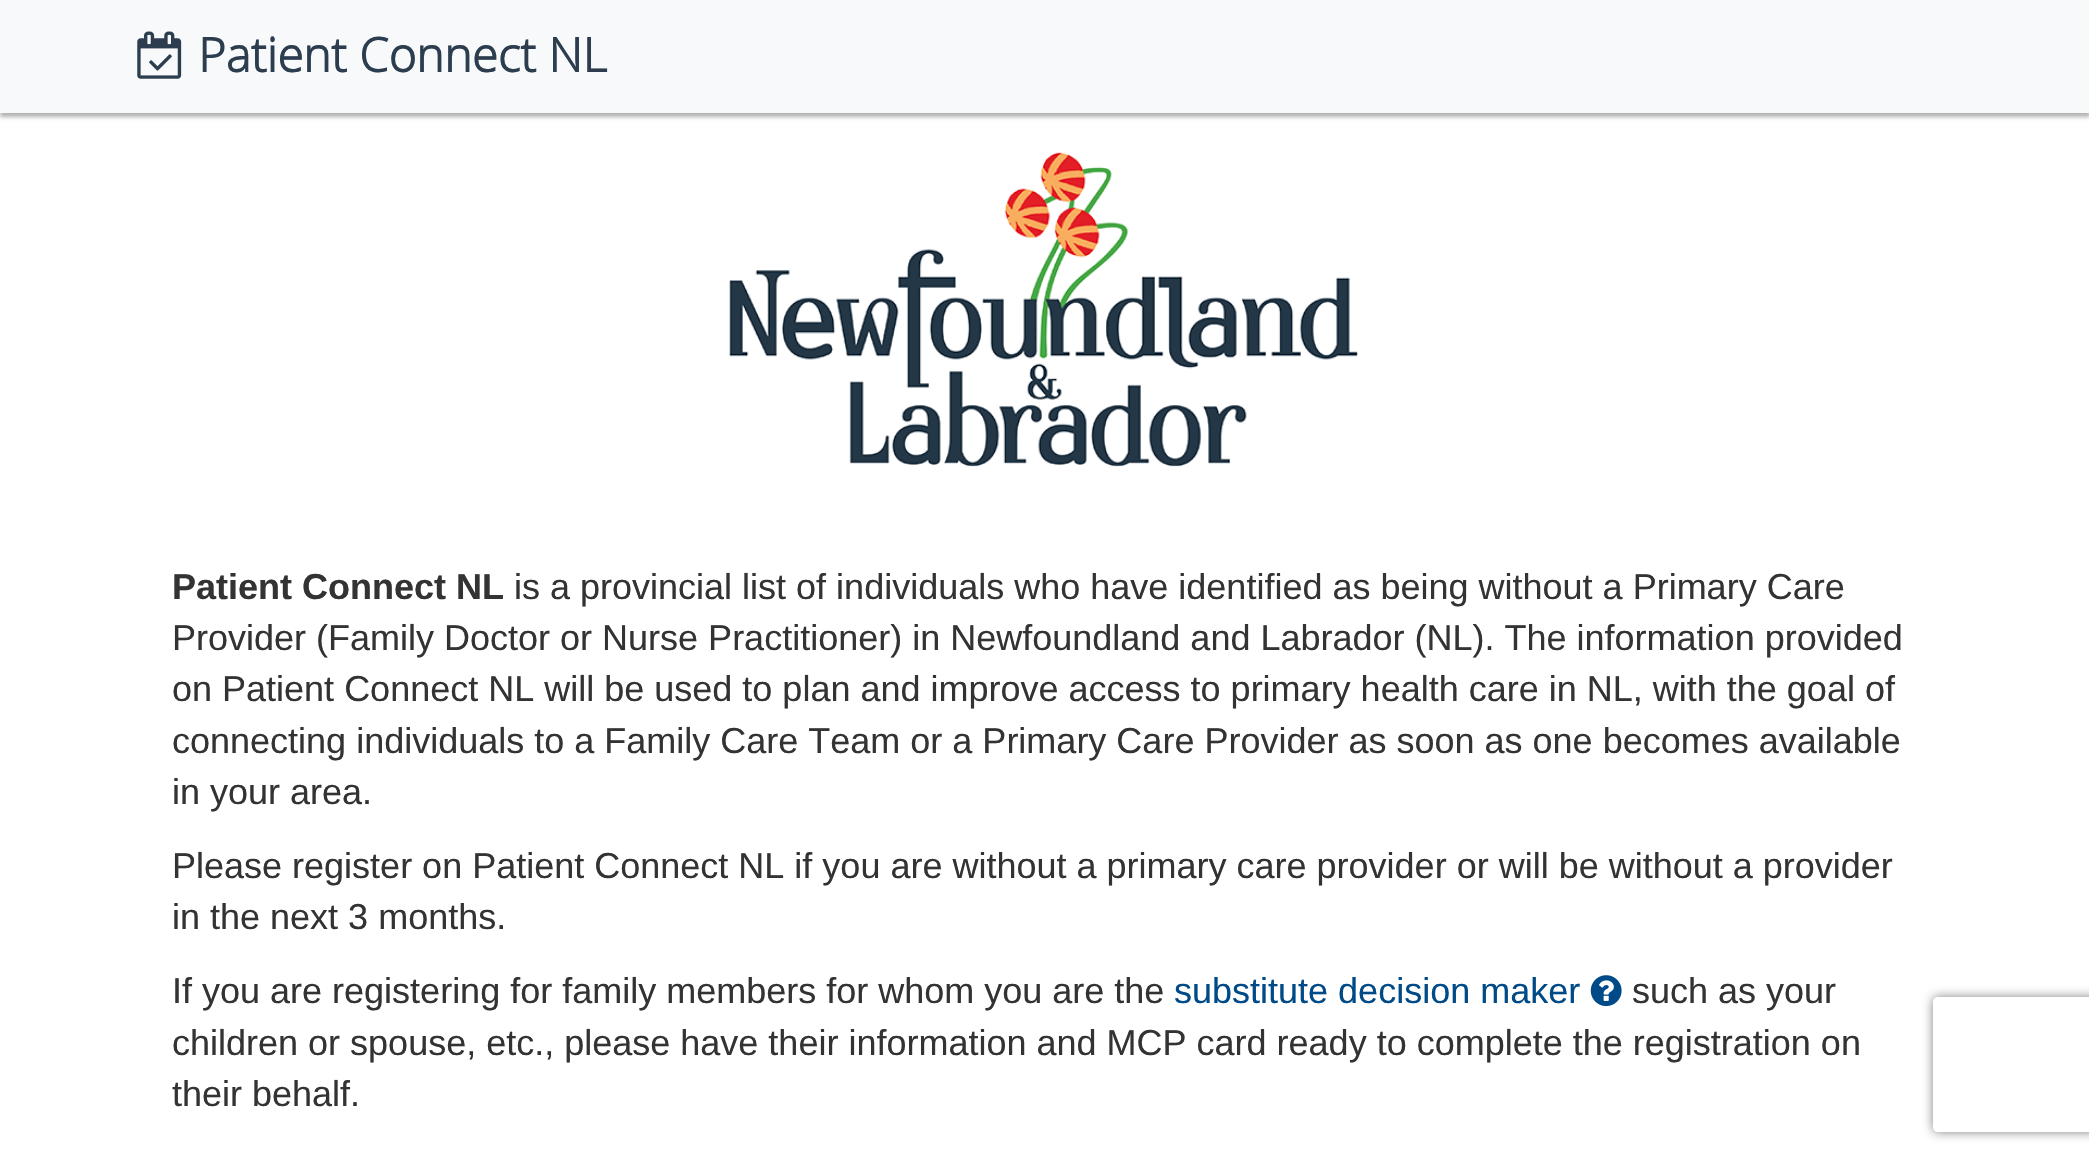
void draw(SkCanvas* canvas) {
	SkPaint paint;
	paint.setAntiAlias(true);
	auto svgPath = [&](const char* data, bool evenOdd = false) {
		SkPath result = *SkParsePath::FromSVGString(data);
		if (evenOdd) result.setFillType(SkPathFillType::kEvenOdd);
		return result;
	};
	canvas->clear(0xffffffff);
	paint.setColor(0x4d000000);
	paint.setMaskFilter(SkMaskFilter::MakeBlur(kNormal_SkBlurStyle, 2));
	canvas->drawRect(SkRect::MakeXYWH(0, 5, 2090, 112), paint);
	paint.setMaskFilter(nullptr);
	paint.setColor(0xfff8f9fa);
	canvas->drawRect(SkRect::MakeXYWH(0, 0, 2089, 113), paint);
	canvas->drawImageRect(SkImages::DeferredFromEncodedData(SkData::MakeFromFileName("img1.png")), SkRect::MakeXYWH(137, 31, 45, 48), SkSamplingOptions());
	SkFont f1(fontMgr->matchFamilyStyle("Open Sans", SkFontStyle::Bold()), 47.25);
	f1.setSubpixel(true);
	paint.setColor(0xff2b3d4f);
	canvas->drawString("Patient Connect NL", 198, 72, f1, paint);
	canvas->drawImageRect(SkImages::DeferredFromEncodedData(SkData::MakeFromFileName("img2.png")), SkRect::MakeXYWH(729, 152, 629, 315), SkSamplingOptions());
	SkFont f2(fontMgr->matchFamilyStyle("Liberation Sans", SkFontStyle::Bold()), 36);
	f2.setSubpixel(true);
	paint.setColor(0xff333333);
	canvas->drawString("Patient Connect NL", 172, 599, f2, paint);
	SkFont f3(fontMgr->matchFamilyStyle("Liberation Sans", SkFontStyle::Normal()), 36);
	f3.setSubpixel(true);
	canvas->drawString("is a provincial list of individuals who have identified as being without a Primary Care", 514, 599, f3, paint);
	canvas->drawString("Provider (Family Doctor or Nurse Practitioner) in Newfoundland and Labrador (NL). The information provided", 172, 650, f3, paint);
	canvas->drawString("on Patient Connect NL will be used to plan and improve access to primary health care in NL, with the goal of", 172, 701, f3, paint);
	canvas->drawString("connecting individuals to a Family Care Team or a Primary Care Provider as soon as one becomes available", 172, 753, f3, paint);
	canvas->drawString("in your area.", 172, 804, f3, paint);
	canvas->drawString("Please register on Patient Connect NL if you are without a primary care provider or will be without a provider", 172, 878, f3, paint);
	canvas->drawString("in the next 3 months.", 172, 929, f3, paint);
	canvas->drawString("If you are registering for family members for whom you are the", 172, 1003, f3, paint);
	paint.setColor(0xff004b87);
	canvas->drawString("substitute decision maker", 1174, 1003, f3, paint);
	canvas->drawImageRect(SkImages::DeferredFromEncodedData(SkData::MakeFromFileName("img3.png")), SkRect::MakeXYWH(1590, 975, 32, 32), SkSamplingOptions());
	paint.setColor(0xff333333);
	canvas->drawString("such as your", 1632, 1003, f3, paint);
	canvas->drawString("children or spouse, etc., please have their information and MCP card ready to complete the registration on", 172, 1055, f3, paint);
	canvas->drawString("their behalf.", 172, 1106, f3, paint);
	canvas->save();
	canvas->clipPath(svgPath("M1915 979H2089V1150H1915ZM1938 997H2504C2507 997 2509 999 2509 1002V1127C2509 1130 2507 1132 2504 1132H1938C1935 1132 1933 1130 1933 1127V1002C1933 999 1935 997 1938 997Z", true), true);
	paint.setColor(0xff808080);
	paint.setMaskFilter(SkMaskFilter::MakeBlur(kNormal_SkBlurStyle, 5.5));
	canvas->drawRoundRect(SkRect::MakeXYWH(1933, 997, 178, 135), 5, 5, paint);
	paint.setMaskFilter(nullptr);
	canvas->restore();
}
